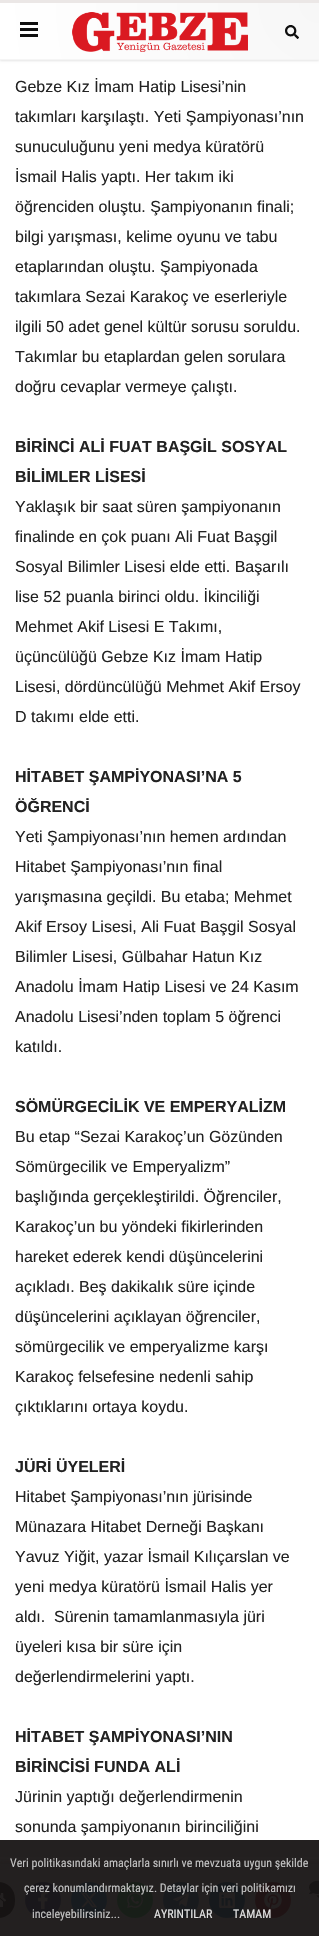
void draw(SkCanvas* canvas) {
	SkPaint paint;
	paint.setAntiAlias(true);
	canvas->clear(0xffffffff);
	paint.setColor(0x1a000000);
	paint.setMaskFilter(SkMaskFilter::MakeBlur(kNormal_SkBlurStyle, 1));
	canvas->drawRect(SkRect::MakeXYWH(0, 1, 319, 60), paint);
	paint.setMaskFilter(nullptr);
	{
		const SkColor colors[] = {0xfff7f7f7, 0xffffffff};
		const float stops[] = {0, 1};
		paint.setShader(SkGradientShader::MakeRadial({319, 3}, 324, colors, stops, 2, SkTileMode::kClamp));
		paint.setAlpha(255);
	}
	canvas->drawRect(SkRect::MakeXYWH(0, 3, 319, 56), paint);
	paint.setShader(nullptr);
	paint.setColor(0xffebe7e6);
	canvas->drawRect(SkRect::MakeXYWH(0, 0, 319, 3), paint);
	paint.setColor(0xfff5f5f5);
	canvas->drawRect(SkRect::MakeXYWH(0, 59, 319, 1), paint);
	paint.setColor(0xff0f0f0f);
	canvas->drawRect(SkRect::MakeXYWH(20, 22, 18, 3), paint);
	canvas->drawRect(SkRect::MakeXYWH(20, 28, 18, 3), paint);
	canvas->drawRect(SkRect::MakeXYWH(20, 34, 18, 3), paint);
	canvas->drawImageRect(SkImages::DeferredFromEncodedData(SkData::MakeFromFileName("img1.png")), SkRect::MakeXYWH(72, 12, 176, 40), SkSamplingOptions());
	canvas->drawImageRect(SkImages::DeferredFromEncodedData(SkData::MakeFromFileName("img2.png")), SkRect::MakeXYWH(285, 25, 14, 14), SkSamplingOptions());
	paint.setColor(0xff232020);
	canvas->drawRect(SkRect::MakeXYWH(0, 1840, 319, 24), paint);
	SkFont f1(fontMgr->matchFamilyStyle("Liberation Sans", SkFontStyle::Normal()), 16);
	f1.setSubpixel(true);
	paint.setColor(0xff222222);
	canvas->drawString("Gebze Kız İmam Hatip Lisesi’nin", 15, 92, f1, paint);
	canvas->drawString("takımları karşılaştı. Yeti Şampiyonası’nın", 15, 122, f1, paint);
	canvas->drawString("sunuculuğunu yeni medya küratörü", 15, 152, f1, paint);
	canvas->drawString("İsmail Halis yaptı. Her takım iki", 15, 182, f1, paint);
	canvas->drawString("öğrenciden oluştu. Şampiyonanın finali;", 15, 212, f1, paint);
	canvas->drawString("bilgi yarışması, kelime oyunu ve tabu", 15, 242, f1, paint);
	canvas->drawString("etaplarından oluştu. Şampiyonada", 15, 272, f1, paint);
	canvas->drawString("takımlara Sezai Karakoç ve eserleriyle", 15, 302, f1, paint);
	canvas->drawString("ilgili 50 adet genel kültür sorusu soruldu.", 15, 332, f1, paint);
	canvas->drawString("Takımlar bu etaplardan gelen sorulara", 15, 362, f1, paint);
	canvas->drawString("doğru cevaplar vermeye çalıştı.", 15, 392, f1, paint);
	SkFont f2(fontMgr->matchFamilyStyle("Liberation Sans", SkFontStyle::Bold()), 16);
	f2.setSubpixel(true);
	canvas->drawString("BİRİNCİ ALİ FUAT BAŞGİL SOSYAL", 15, 452, f2, paint);
	canvas->drawString("BİLİMLER LİSESİ", 15, 482, f2, paint);
	canvas->drawString("Yaklaşık bir saat süren şampiyonanın", 15, 512, f1, paint);
	canvas->drawString("finalinde en çok puanı Ali Fuat Başgil", 15, 542, f1, paint);
	canvas->drawString("Sosyal Bilimler Lisesi elde etti. Başarılı", 15, 572, f1, paint);
	canvas->drawString("lise 52 puanla birinci oldu. İkinciliği", 15, 602, f1, paint);
	canvas->drawString("Mehmet Akif Lisesi E Takımı,", 15, 632, f1, paint);
	canvas->drawString("üçüncülüğü Gebze Kız İmam Hatip", 15, 662, f1, paint);
	canvas->drawString("Lisesi, dördüncülüğü Mehmet Akif Ersoy", 15, 692, f1, paint);
	canvas->drawString("D takımı elde etti.", 15, 722, f1, paint);
	canvas->drawString("HİTABET ŞAMPİYONASI’NA 5", 15, 782, f2, paint);
	canvas->drawString("ÖĞRENCİ", 15, 812, f2, paint);
	canvas->drawString("Yeti Şampiyonası’nın hemen ardından", 15, 842, f1, paint);
	canvas->drawString("Hitabet Şampiyonası’nın final", 15, 872, f1, paint);
	canvas->drawString("yarışmasına geçildi. Bu etaba; Mehmet", 15, 902, f1, paint);
	canvas->drawString("Akif Ersoy Lisesi, Ali Fuat Başgil Sosyal", 15, 932, f1, paint);
	canvas->drawString("Bilimler Lisesi, Gülbahar Hatun Kız", 15, 962, f1, paint);
	canvas->drawString("Anadolu İmam Hatip Lisesi ve 24 Kasım", 15, 992, f1, paint);
	canvas->drawString("Anadolu Lisesi’nden toplam 5 öğrenci", 15, 1022, f1, paint);
	canvas->drawString("katıldı.", 15, 1052, f1, paint);
	canvas->drawString("SÖMÜRGECİLİK VE EMPERYALİZM", 15, 1112, f2, paint);
	canvas->drawString("Bu etap “Sezai Karakoç’un Gözünden", 15, 1142, f1, paint);
	canvas->drawString("Sömürgecilik ve Emperyalizm”", 15, 1172, f1, paint);
	canvas->drawString("başlığında gerçekleştirildi. Öğrenciler,", 15, 1202, f1, paint);
	canvas->drawString("Karakoç’un bu yöndeki fikirlerinden", 15, 1232, f1, paint);
	canvas->drawString("hareket ederek kendi düşüncelerini", 15, 1262, f1, paint);
	canvas->drawString("açıkladı. Beş dakikalık süre içinde", 15, 1292, f1, paint);
	canvas->drawString("düşüncelerini açıklayan öğrenciler,", 15, 1322, f1, paint);
	canvas->drawString("sömürgecilik ve emperyalizme karşı", 15, 1352, f1, paint);
	canvas->drawString("Karakoç felsefesine nedenli sahip", 15, 1382, f1, paint);
	canvas->drawString("çıktıklarını ortaya koydu.", 15, 1412, f1, paint);
	canvas->drawString("JÜRİ ÜYELERİ", 15, 1472, f2, paint);
	canvas->drawString("Hitabet Şampiyonası’nın jürisinde", 15, 1502, f1, paint);
	canvas->drawString("Münazara Hitabet Derneği Başkanı", 15, 1532, f1, paint);
	canvas->drawString("Yavuz Yiğit, yazar İsmail Kılıçarslan ve", 15, 1562, f1, paint);
	canvas->drawString("yeni medya küratörü İsmail Halis yer", 15, 1592, f1, paint);
	canvas->drawString("aldı.", 15, 1622, f1, paint);
	canvas->drawString("Sürenin tamamlanmasıyla jüri", 54, 1622, f1, paint);
	canvas->drawString("üyeleri kısa bir süre için", 15, 1652, f1, paint);
	canvas->drawString("değerlendirmelerini yaptı.", 15, 1682, f1, paint);
	canvas->drawString("HİTABET ŞAMPİYONASI’NIN", 15, 1742, f2, paint);
	canvas->drawString("BİRİNCİSİ FUNDA ALİ", 15, 1772, f2, paint);
	canvas->drawString("Jürinin yaptığı değerlendirmenin", 15, 1802, f1, paint);
	canvas->drawString("sonunda şampiyonanın birinciliğini", 15, 1832, f1, paint);
	paint.setColor(0x941f1c1c);
	paint.setMaskFilter(SkMaskFilter::MakeBlur(kNormal_SkBlurStyle, 2));
	canvas->drawRect(SkRect::MakeXYWH(0, 1863, 319, 72), paint);
	paint.setMaskFilter(nullptr);
	paint.setColor(0xff232020);
	canvas->drawRect(SkRect::MakeXYWH(0, 1864, 319, 72), paint);
	paint.setColor(0xff161313);
	canvas->drawRoundRect(SkRect::MakeXYWH(-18, 1882, 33, 36), 18, 18, paint);
	canvas->drawImageRect(SkImages::DeferredFromEncodedData(SkData::MakeFromFileName("img3.png")), SkRect::MakeXYWH(0, 1893, 6, 14), SkSamplingOptions());
	paint.setColor(0xff19171b);
	canvas->drawCircle(43, 1900, 18, paint);
	canvas->drawImageRect(SkImages::DeferredFromEncodedData(SkData::MakeFromFileName("img4.png")), SkRect::MakeXYWH(38, 1891, 10, 18), SkSamplingOptions());
	paint.setColor(0xff171b1f);
	canvas->drawCircle(89, 1900, 18, paint);
	canvas->drawImageRect(SkImages::DeferredFromEncodedData(SkData::MakeFromFileName("img5.png")), SkRect::MakeXYWH(81, 1892, 16, 16), SkSamplingOptions());
	paint.setColor(0xff181e18);
	canvas->drawCircle(135, 1900, 18, paint);
	canvas->drawImageRect(SkImages::DeferredFromEncodedData(SkData::MakeFromFileName("img6.png")), SkRect::MakeXYWH(127, 1892, 16, 16), SkSamplingOptions());
	paint.setColor(0xff181a1d);
	canvas->drawCircle(181, 1900, 18, paint);
	canvas->drawImageRect(SkImages::DeferredFromEncodedData(SkData::MakeFromFileName("img7.png")), SkRect::MakeXYWH(173, 1893, 16, 14), SkSamplingOptions());
	paint.setColor(0xff16191c);
	canvas->drawCircle(227, 1900, 18, paint);
	canvas->drawImageRect(SkImages::DeferredFromEncodedData(SkData::MakeFromFileName("img8.png")), SkRect::MakeXYWH(219, 1892, 16, 16), SkSamplingOptions());
	paint.setColor(0xff1f1314);
	canvas->drawCircle(273, 1900, 18, paint);
	canvas->drawImageRect(SkImages::DeferredFromEncodedData(SkData::MakeFromFileName("img9.png")), SkRect::MakeXYWH(264, 1891, 18, 18), SkSamplingOptions());
	canvas->drawImageRect(SkImages::DeferredFromEncodedData(SkData::MakeFromFileName("img10.png")), SkRect::MakeXYWH(309, 1880, 10, 18), SkSamplingOptions());
	SkFont f3(fontMgr->matchFamilyStyle("Roboto Condensed", SkFontStyle::Normal()), 12);
	f3.setSubpixel(true);
	paint.setColor(0xffc3c3c3);
	canvas->drawString("Veri politikasındaki amaçlarla sınırlı ve mevzuata uygun şekilde", 10, 1867, f3, paint);
	canvas->drawString("çerez konumlandırmaktayız. Detaylar için veri politikamızı", 24, 1892, f3, paint);
	canvas->drawString("inceleyebilirsiniz...", 32, 1918, f3, paint);
	paint.setColor(0xffe4e4e4);
	canvas->drawString("AYRINTILAR", 154, 1918, f3, paint);
	canvas->drawString("TAMAM", 233, 1918, f3, paint);
}
